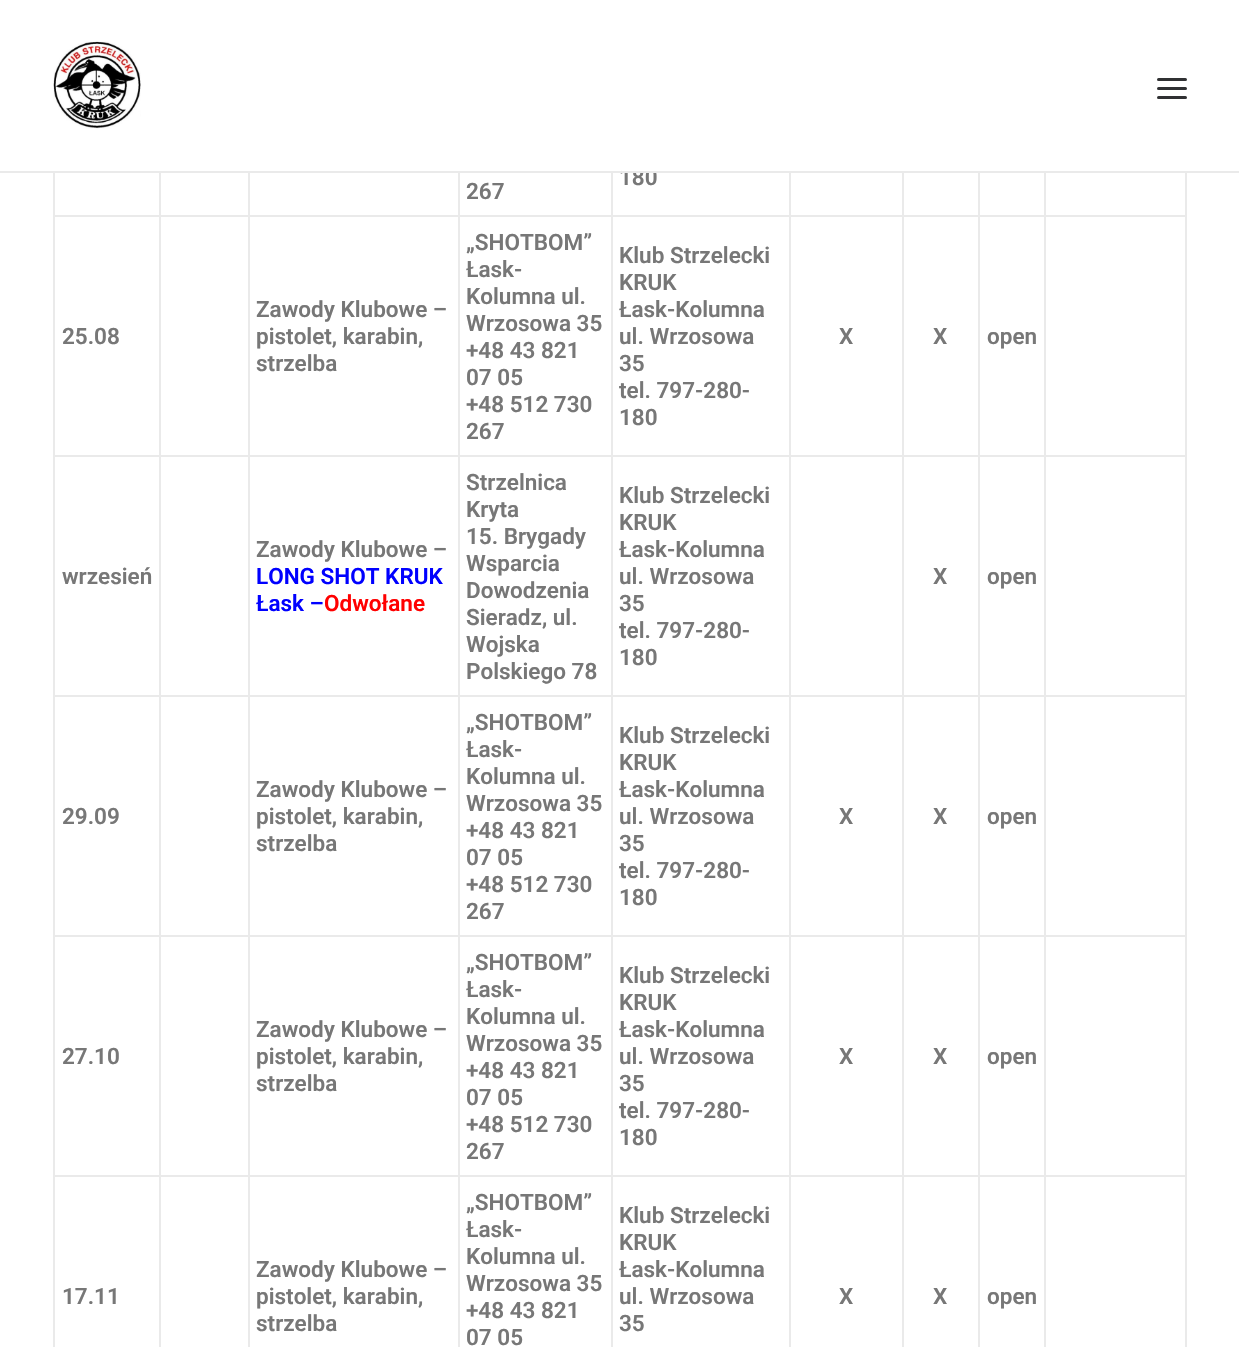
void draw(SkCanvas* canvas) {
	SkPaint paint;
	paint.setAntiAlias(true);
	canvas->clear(0xffffffff);
	SkFont f1(fontMgr->matchFamilyStyle("Roboto", SkFontStyle(600, SkFontStyle::kNormal_Width, SkFontStyle::kUpright_Slant)), 22.5);
	f1.setSubpixel(true);
	paint.setColor(0xff777777);
	canvas->drawString("180", 619, 185, f1, paint);
	paint.setColor(0xffffffff);
	canvas->drawRect(SkRect::MakeXYWH(622, 168, 34, 3), paint);
	paint.setColor(0xffeaeaea);
	canvas->drawRect(SkRect::MakeXYWH(0, 171, 1239, 2), paint);
	canvas->drawImageRect(SkImages::DeferredFromEncodedData(SkData::MakeFromFileName("img1.png")), SkRect::MakeXYWH(53, 41, 88, 88), SkSamplingOptions());
	paint.setColor(0xff303133);
	canvas->drawRoundRect(SkRect::MakeXYWH(1157, 87, 30, 3), 1.5, 1.5, paint);
	canvas->drawRoundRect(SkRect::MakeXYWH(1157, 78, 30, 3), 1.5, 1.5, paint);
	canvas->drawRoundRect(SkRect::MakeXYWH(1157, 96, 30, 3), 1.5, 1.5, paint);
	paint.setColor(0xffeaeaea);
	canvas->drawRect(SkRect::MakeXYWH(1185, 173, 2, 1174), paint);
	canvas->drawRect(SkRect::MakeXYWH(53, 173, 2, 1174), paint);
	canvas->drawRect(SkRect::MakeXYWH(1044, 1175, 2, 172), paint);
	canvas->drawRect(SkRect::MakeXYWH(1044, 1175, 143, 2), paint);
	canvas->drawRect(SkRect::MakeXYWH(1044, 935, 2, 241), paint);
	canvas->drawRect(SkRect::MakeXYWH(1044, 935, 143, 2), paint);
	canvas->drawRect(SkRect::MakeXYWH(1044, 695, 2, 241), paint);
	canvas->drawRect(SkRect::MakeXYWH(1044, 695, 143, 2), paint);
	canvas->drawRect(SkRect::MakeXYWH(1044, 455, 2, 241), paint);
	canvas->drawRect(SkRect::MakeXYWH(1044, 455, 143, 2), paint);
	canvas->drawRect(SkRect::MakeXYWH(1044, 215, 2, 241), paint);
	canvas->drawRect(SkRect::MakeXYWH(1044, 215, 143, 2), paint);
	canvas->drawRect(SkRect::MakeXYWH(1044, 173, 2, 43), paint);
	canvas->drawRect(SkRect::MakeXYWH(978, 1175, 2, 172), paint);
	canvas->drawRect(SkRect::MakeXYWH(978, 1175, 68, 2), paint);
	canvas->drawRect(SkRect::MakeXYWH(978, 935, 2, 241), paint);
	canvas->drawRect(SkRect::MakeXYWH(978, 935, 68, 2), paint);
	canvas->drawRect(SkRect::MakeXYWH(978, 695, 2, 241), paint);
	canvas->drawRect(SkRect::MakeXYWH(978, 695, 68, 2), paint);
	canvas->drawRect(SkRect::MakeXYWH(978, 455, 2, 241), paint);
	canvas->drawRect(SkRect::MakeXYWH(978, 455, 68, 2), paint);
	canvas->drawRect(SkRect::MakeXYWH(978, 215, 2, 241), paint);
	canvas->drawRect(SkRect::MakeXYWH(978, 215, 68, 2), paint);
	canvas->drawRect(SkRect::MakeXYWH(978, 173, 2, 43), paint);
	canvas->drawRect(SkRect::MakeXYWH(902, 1175, 2, 172), paint);
	canvas->drawRect(SkRect::MakeXYWH(902, 1175, 78, 2), paint);
	canvas->drawRect(SkRect::MakeXYWH(902, 935, 2, 241), paint);
	canvas->drawRect(SkRect::MakeXYWH(902, 935, 78, 2), paint);
	canvas->drawRect(SkRect::MakeXYWH(902, 695, 2, 241), paint);
	canvas->drawRect(SkRect::MakeXYWH(902, 695, 78, 2), paint);
	canvas->drawRect(SkRect::MakeXYWH(902, 455, 2, 241), paint);
	canvas->drawRect(SkRect::MakeXYWH(902, 455, 78, 2), paint);
	canvas->drawRect(SkRect::MakeXYWH(902, 215, 2, 241), paint);
	canvas->drawRect(SkRect::MakeXYWH(902, 215, 78, 2), paint);
	canvas->drawRect(SkRect::MakeXYWH(902, 173, 2, 43), paint);
	canvas->drawRect(SkRect::MakeXYWH(789, 1175, 2, 172), paint);
	canvas->drawRect(SkRect::MakeXYWH(789, 1175, 114, 2), paint);
	canvas->drawRect(SkRect::MakeXYWH(789, 935, 2, 241), paint);
	canvas->drawRect(SkRect::MakeXYWH(789, 935, 114, 2), paint);
	canvas->drawRect(SkRect::MakeXYWH(789, 695, 2, 241), paint);
	canvas->drawRect(SkRect::MakeXYWH(789, 695, 114, 2), paint);
	canvas->drawRect(SkRect::MakeXYWH(789, 455, 2, 241), paint);
	canvas->drawRect(SkRect::MakeXYWH(789, 455, 114, 2), paint);
	canvas->drawRect(SkRect::MakeXYWH(789, 215, 2, 241), paint);
	canvas->drawRect(SkRect::MakeXYWH(789, 215, 114, 2), paint);
	canvas->drawRect(SkRect::MakeXYWH(789, 173, 2, 43), paint);
	canvas->drawRect(SkRect::MakeXYWH(611, 1175, 2, 172), paint);
	canvas->drawRect(SkRect::MakeXYWH(611, 1175, 180, 2), paint);
	canvas->drawRect(SkRect::MakeXYWH(611, 935, 2, 241), paint);
	canvas->drawRect(SkRect::MakeXYWH(611, 935, 180, 2), paint);
	canvas->drawRect(SkRect::MakeXYWH(611, 695, 2, 241), paint);
	canvas->drawRect(SkRect::MakeXYWH(611, 695, 180, 2), paint);
	canvas->drawRect(SkRect::MakeXYWH(611, 455, 2, 241), paint);
	canvas->drawRect(SkRect::MakeXYWH(611, 455, 180, 2), paint);
	canvas->drawRect(SkRect::MakeXYWH(611, 215, 2, 241), paint);
	canvas->drawRect(SkRect::MakeXYWH(611, 215, 180, 2), paint);
	canvas->drawRect(SkRect::MakeXYWH(611, 173, 2, 43), paint);
	canvas->drawRect(SkRect::MakeXYWH(458, 1175, 2, 172), paint);
	canvas->drawRect(SkRect::MakeXYWH(458, 1175, 154, 2), paint);
	canvas->drawRect(SkRect::MakeXYWH(458, 935, 2, 241), paint);
	canvas->drawRect(SkRect::MakeXYWH(458, 935, 154, 2), paint);
	canvas->drawRect(SkRect::MakeXYWH(458, 695, 2, 241), paint);
	canvas->drawRect(SkRect::MakeXYWH(458, 695, 154, 2), paint);
	canvas->drawRect(SkRect::MakeXYWH(458, 455, 2, 241), paint);
	canvas->drawRect(SkRect::MakeXYWH(458, 455, 154, 2), paint);
	canvas->drawRect(SkRect::MakeXYWH(458, 215, 2, 241), paint);
	canvas->drawRect(SkRect::MakeXYWH(458, 215, 154, 2), paint);
	canvas->drawRect(SkRect::MakeXYWH(458, 173, 2, 43), paint);
	canvas->drawRect(SkRect::MakeXYWH(248, 1175, 2, 172), paint);
	canvas->drawRect(SkRect::MakeXYWH(248, 1175, 211, 2), paint);
	canvas->drawRect(SkRect::MakeXYWH(248, 935, 2, 241), paint);
	canvas->drawRect(SkRect::MakeXYWH(248, 935, 211, 2), paint);
	canvas->drawRect(SkRect::MakeXYWH(248, 695, 2, 241), paint);
	canvas->drawRect(SkRect::MakeXYWH(248, 695, 211, 2), paint);
	canvas->drawRect(SkRect::MakeXYWH(248, 455, 2, 241), paint);
	canvas->drawRect(SkRect::MakeXYWH(248, 455, 211, 2), paint);
	canvas->drawRect(SkRect::MakeXYWH(248, 215, 2, 241), paint);
	canvas->drawRect(SkRect::MakeXYWH(248, 215, 211, 2), paint);
	canvas->drawRect(SkRect::MakeXYWH(248, 173, 2, 43), paint);
	canvas->drawRect(SkRect::MakeXYWH(159, 1175, 2, 172), paint);
	canvas->drawRect(SkRect::MakeXYWH(159, 1175, 90, 2), paint);
	canvas->drawRect(SkRect::MakeXYWH(159, 935, 2, 241), paint);
	canvas->drawRect(SkRect::MakeXYWH(159, 935, 90, 2), paint);
	canvas->drawRect(SkRect::MakeXYWH(159, 695, 2, 241), paint);
	canvas->drawRect(SkRect::MakeXYWH(159, 695, 90, 2), paint);
	canvas->drawRect(SkRect::MakeXYWH(159, 455, 2, 241), paint);
	canvas->drawRect(SkRect::MakeXYWH(159, 455, 90, 2), paint);
	canvas->drawRect(SkRect::MakeXYWH(159, 215, 2, 241), paint);
	canvas->drawRect(SkRect::MakeXYWH(159, 215, 90, 2), paint);
	canvas->drawRect(SkRect::MakeXYWH(159, 173, 2, 43), paint);
	paint.setColor(0xff777777);
	canvas->drawString("267", 466, 199, f1, paint);
	paint.setColor(0xffeaeaea);
	canvas->drawRect(SkRect::MakeXYWH(53, 215, 108, 2), paint);
	canvas->drawRect(SkRect::MakeXYWH(53, 455, 108, 2), paint);
	paint.setColor(0xff777777);
	canvas->drawString("25.08", 62, 344, f1, paint);
	canvas->drawString("Zawody Klubowe –", 256, 317, f1, paint);
	canvas->drawString("pistolet, karabin,", 256, 344, f1, paint);
	canvas->drawString("strzelba", 256, 371, f1, paint);
	canvas->drawString("„SHOTBOM”", 466, 250, f1, paint);
	canvas->drawString("Łask-", 466, 277, f1, paint);
	canvas->drawString("Kolumna ul.", 466, 304, f1, paint);
	canvas->drawString("Wrzosowa 35", 466, 331, f1, paint);
	canvas->drawString("+48 43 821", 466, 358, f1, paint);
	canvas->drawString("07 05", 466, 385, f1, paint);
	canvas->drawString("+48 512 730", 466, 412, f1, paint);
	canvas->drawString("267", 466, 439, f1, paint);
	canvas->drawString("Klub Strzelecki", 619, 263, f1, paint);
	canvas->drawString("KRUK", 619, 290, f1, paint);
	canvas->drawString("Łask-Kolumna", 619, 317, f1, paint);
	canvas->drawString("ul. Wrzosowa", 619, 344, f1, paint);
	canvas->drawString("35", 619, 371, f1, paint);
	canvas->drawString("tel. 797-280-", 619, 398, f1, paint);
	canvas->drawString("180", 619, 425, f1, paint);
	canvas->drawString("X", 839, 344, f1, paint);
	canvas->drawString("X", 933, 344, f1, paint);
	canvas->drawString("open", 987, 344, f1, paint);
	paint.setColor(0xffeaeaea);
	canvas->drawRect(SkRect::MakeXYWH(53, 695, 108, 2), paint);
	paint.setColor(0xff777777);
	canvas->drawString("wrzesień", 62, 584, f1, paint);
	canvas->drawString("Zawody Klubowe –", 256, 557, f1, paint);
	paint.setColor(0xff0000ff);
	canvas->drawString("LONG SHOT KRUK", 256, 584, f1, paint);
	canvas->drawString("Łask –", 256, 611, f1, paint);
	paint.setColor(0xffff0000);
	canvas->drawString("Odwołane", 324, 611, f1, paint);
	paint.setColor(0xff777777);
	canvas->drawString("Strzelnica", 466, 490, f1, paint);
	canvas->drawString("Kryta", 466, 517, f1, paint);
	canvas->drawString("15. Brygady", 466, 544, f1, paint);
	canvas->drawString("Wsparcia", 466, 571, f1, paint);
	canvas->drawString("Dowodzenia", 466, 598, f1, paint);
	canvas->drawString("Sieradz, ul.", 466, 625, f1, paint);
	canvas->drawString("Wojska", 466, 652, f1, paint);
	canvas->drawString("Polskiego 78", 466, 679, f1, paint);
	canvas->drawString("Klub Strzelecki", 619, 503, f1, paint);
	canvas->drawString("KRUK", 619, 530, f1, paint);
	canvas->drawString("Łask-Kolumna", 619, 557, f1, paint);
	canvas->drawString("ul. Wrzosowa", 619, 584, f1, paint);
	canvas->drawString("35", 619, 611, f1, paint);
	canvas->drawString("tel. 797-280-", 619, 638, f1, paint);
	canvas->drawString("180", 619, 665, f1, paint);
	canvas->drawString("X", 933, 584, f1, paint);
	canvas->drawString("open", 987, 584, f1, paint);
	paint.setColor(0xffeaeaea);
	canvas->drawRect(SkRect::MakeXYWH(53, 935, 108, 2), paint);
	paint.setColor(0xff777777);
	canvas->drawString("29.09", 62, 824, f1, paint);
	canvas->drawString("Zawody Klubowe –", 256, 797, f1, paint);
	canvas->drawString("pistolet, karabin,", 256, 824, f1, paint);
	canvas->drawString("strzelba", 256, 851, f1, paint);
	canvas->drawString("„SHOTBOM”", 466, 730, f1, paint);
	canvas->drawString("Łask-", 466, 757, f1, paint);
	canvas->drawString("Kolumna ul.", 466, 784, f1, paint);
	canvas->drawString("Wrzosowa 35", 466, 811, f1, paint);
	canvas->drawString("+48 43 821", 466, 838, f1, paint);
	canvas->drawString("07 05", 466, 865, f1, paint);
	canvas->drawString("+48 512 730", 466, 892, f1, paint);
	canvas->drawString("267", 466, 919, f1, paint);
	canvas->drawString("Klub Strzelecki", 619, 743, f1, paint);
	canvas->drawString("KRUK", 619, 770, f1, paint);
	canvas->drawString("Łask-Kolumna", 619, 797, f1, paint);
	canvas->drawString("ul. Wrzosowa", 619, 824, f1, paint);
	canvas->drawString("35", 619, 851, f1, paint);
	canvas->drawString("tel. 797-280-", 619, 878, f1, paint);
	canvas->drawString("180", 619, 905, f1, paint);
	canvas->drawString("X", 839, 824, f1, paint);
	canvas->drawString("X", 933, 824, f1, paint);
	canvas->drawString("open", 987, 824, f1, paint);
	paint.setColor(0xffeaeaea);
	canvas->drawRect(SkRect::MakeXYWH(53, 1175, 108, 2), paint);
	paint.setColor(0xff777777);
	canvas->drawString("27.10", 62, 1064, f1, paint);
	canvas->drawString("Zawody Klubowe –", 256, 1037, f1, paint);
	canvas->drawString("pistolet, karabin,", 256, 1064, f1, paint);
	canvas->drawString("strzelba", 256, 1091, f1, paint);
	canvas->drawString("„SHOTBOM”", 466, 970, f1, paint);
	canvas->drawString("Łask-", 466, 997, f1, paint);
	canvas->drawString("Kolumna ul.", 466, 1024, f1, paint);
	canvas->drawString("Wrzosowa 35", 466, 1051, f1, paint);
	canvas->drawString("+48 43 821", 466, 1078, f1, paint);
	canvas->drawString("07 05", 466, 1105, f1, paint);
	canvas->drawString("+48 512 730", 466, 1132, f1, paint);
	canvas->drawString("267", 466, 1159, f1, paint);
	canvas->drawString("Klub Strzelecki", 619, 983, f1, paint);
	canvas->drawString("KRUK", 619, 1010, f1, paint);
	canvas->drawString("Łask-Kolumna", 619, 1037, f1, paint);
	canvas->drawString("ul. Wrzosowa", 619, 1064, f1, paint);
	canvas->drawString("35", 619, 1091, f1, paint);
	canvas->drawString("tel. 797-280-", 619, 1118, f1, paint);
	canvas->drawString("180", 619, 1145, f1, paint);
	canvas->drawString("X", 839, 1064, f1, paint);
	canvas->drawString("X", 933, 1064, f1, paint);
	canvas->drawString("open", 987, 1064, f1, paint);
	canvas->drawString("17.11", 62, 1304, f1, paint);
	canvas->drawString("Zawody Klubowe –", 256, 1277, f1, paint);
	canvas->drawString("pistolet, karabin,", 256, 1304, f1, paint);
	canvas->drawString("strzelba", 256, 1331, f1, paint);
	canvas->drawString("„SHOTBOM”", 466, 1210, f1, paint);
	canvas->drawString("Łask-", 466, 1237, f1, paint);
	canvas->drawString("Kolumna ul.", 466, 1264, f1, paint);
	canvas->drawString("Wrzosowa 35", 466, 1291, f1, paint);
	canvas->drawString("+48 43 821", 466, 1318, f1, paint);
	canvas->drawString("07 05", 466, 1345, f1, paint);
	canvas->drawString("Klub Strzelecki", 619, 1223, f1, paint);
	canvas->drawString("KRUK", 619, 1250, f1, paint);
	canvas->drawString("Łask-Kolumna", 619, 1277, f1, paint);
	canvas->drawString("ul. Wrzosowa", 619, 1304, f1, paint);
	canvas->drawString("35", 619, 1331, f1, paint);
	canvas->drawString("X", 839, 1304, f1, paint);
	canvas->drawString("X", 933, 1304, f1, paint);
	canvas->drawString("open", 987, 1304, f1, paint);
}
